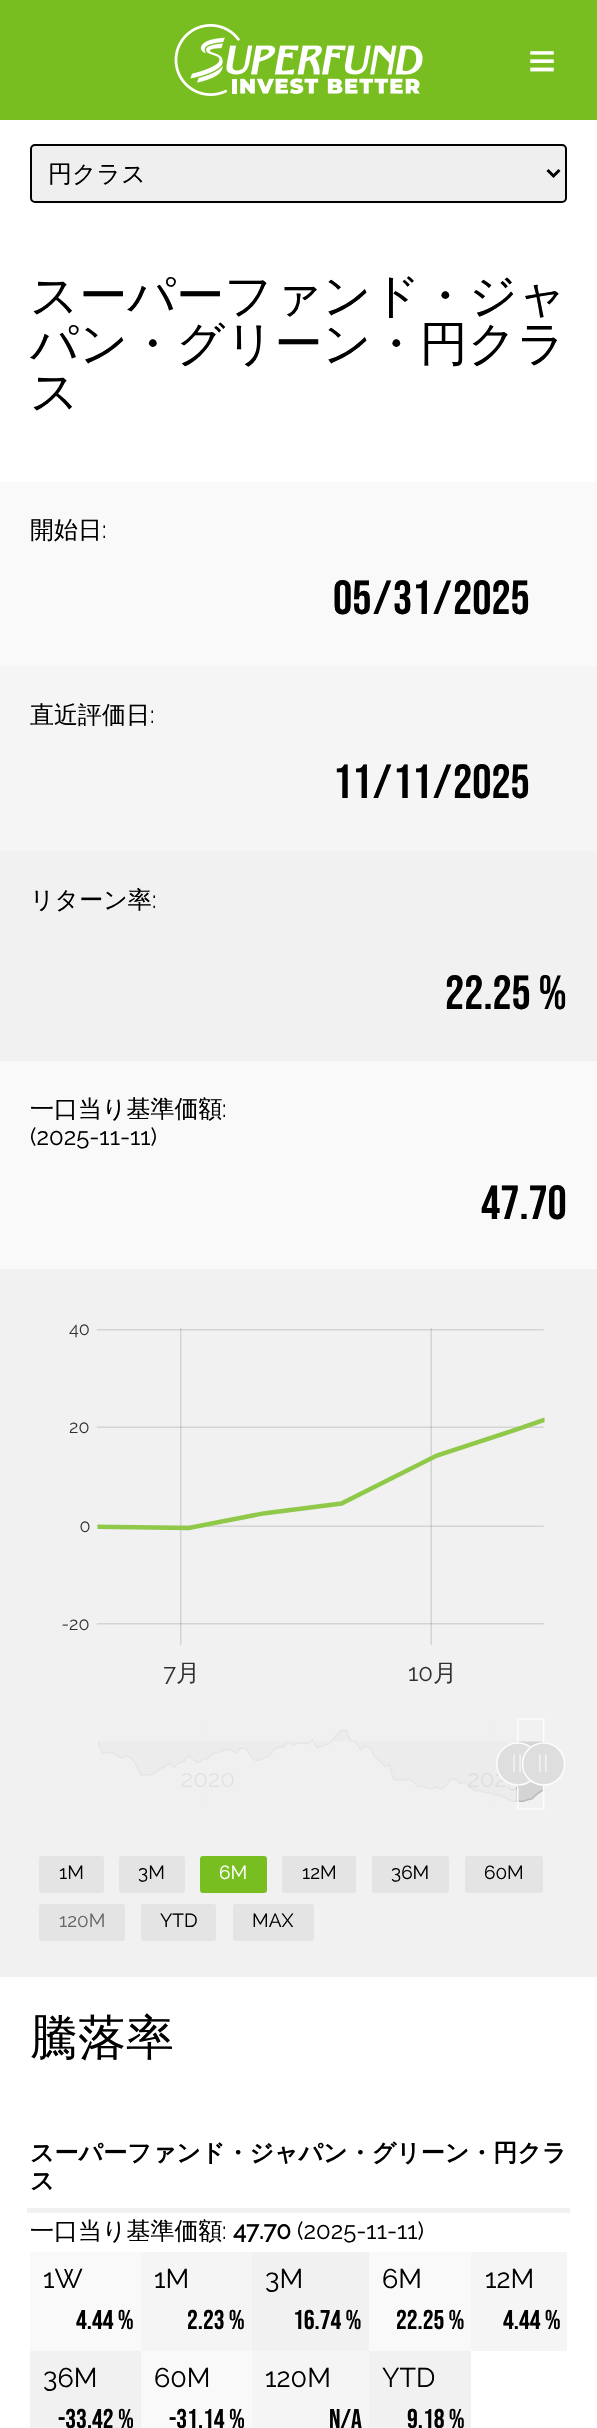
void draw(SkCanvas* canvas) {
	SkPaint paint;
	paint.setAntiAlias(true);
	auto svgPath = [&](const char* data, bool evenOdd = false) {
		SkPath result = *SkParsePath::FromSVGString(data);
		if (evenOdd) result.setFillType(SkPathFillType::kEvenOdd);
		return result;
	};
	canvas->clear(0xffffffff);
	paint.setColor(0xff78be21);
	canvas->drawRect(SkRect::MakeXYWH(0, 0, 597, 120), paint);
	canvas->drawImageRect(SkImages::DeferredFromEncodedData(SkData::MakeFromFileName("img1.png")), SkRect::MakeXYWH(174, 24, 249, 72), SkSamplingOptions());
	SkFont f1(fontMgr->matchFamilyStyle("Liberation Sans", SkFontStyle::Normal()), 48);
	f1.setSubpixel(true);
	paint.setColor(0xffffffff);
	canvas->drawString("≡", 528, 77, f1, paint);
	paint.setColor(0xffefefef);
	canvas->drawRoundRect(SkRect::MakeXYWH(31, 145, 535, 57), 4, 4, paint);
	paint.setStroke(true);
	paint.setStrokeWidth(2);
	paint.setColor(0xff000000);
	canvas->drawRoundRect(SkRect::MakeXYWH(31, 145, 535, 57), 4, 4, paint);
	paint.setStrokeWidth(3);
	canvas->drawPath(svgPath("M547.5 170L553.5 176L559.5 170"), paint);
	SkFont f2(fontMgr->matchFamilyStyle("WenQuanYi Zen Hei", SkFontStyle(500, SkFontStyle::kNormal_Width, SkFontStyle::kUpright_Slant)), 24);
	f2.setSubpixel(true);
	paint.setStroke(false);
	canvas->drawString("円クラス", 48, 182, f2, paint);
	SkFont f3(fontMgr->matchFamilyStyle("WenQuanYi Zen Hei", SkFontStyle(500, SkFontStyle::kNormal_Width, SkFontStyle::kUpright_Slant)), 48);
	f3.setSubpixel(true);
	canvas->drawString("スーパーファンド・ジャ", 30, 312, f3, paint);
	canvas->drawString("パン・グリーン・円クラ", 30, 360, f3, paint);
	canvas->drawString("ス", 30, 408, f3, paint);
	paint.setColor(0xfff9f9f9);
	canvas->drawRect(SkRect::MakeXYWH(0, 482, 597, 184), paint);
	paint.setColor(0xff000000);
	canvas->drawString("開始日", 30, 538, f2, paint);
	SkFont f4(fontMgr->matchFamilyStyle("Raleway", SkFontStyle(100, SkFontStyle::kNormal_Width, SkFontStyle::kUpright_Slant)), 24);
	f4.setSubpixel(true);
	canvas->drawString(":", 102, 538, f4, paint);
	SkFont f5(fontMgr->matchFamilyStyle("Bebas Neue", SkFontStyle::Normal()), 48);
	f5.setSubpixel(true);
	canvas->drawString("05", 333, 614, f5, paint);
	canvas->drawString("/", 373, 614, f5, paint);
	canvas->drawString("31", 393, 614, f5, paint);
	canvas->drawString("/", 433, 614, f5, paint);
	canvas->drawString("2025", 453, 614, f5, paint);
	paint.setColor(0xfff5f5f5);
	canvas->drawRect(SkRect::MakeXYWH(0, 666, 597, 185), paint);
	paint.setColor(0xff000000);
	canvas->drawString("直近評価日", 30, 723, f2, paint);
	canvas->drawString(":", 150, 723, f4, paint);
	canvas->drawString("11", 333, 798, f5, paint);
	canvas->drawString("/", 373, 798, f5, paint);
	canvas->drawString("11", 393, 798, f5, paint);
	canvas->drawString("/", 433, 798, f5, paint);
	canvas->drawString("2025", 453, 798, f5, paint);
	paint.setColor(0xfff1f1f1);
	canvas->drawRect(SkRect::MakeXYWH(0, 851, 597, 210), paint);
	paint.setColor(0xff000000);
	canvas->drawString("リターン率", 30, 908, f2, paint);
	canvas->drawString(":", 152, 908, f4, paint);
	canvas->drawString("22.25 %", 445, 1009, f5, paint);
	paint.setColor(0xfff9f9f9);
	canvas->drawRect(SkRect::MakeXYWH(0, 1061, 597, 208), paint);
	paint.setColor(0xff000000);
	canvas->drawString("一口当り基準価額", 30, 1117, f2, paint);
	canvas->drawString(":", 222, 1117, f4, paint);
	canvas->drawString("(2025-11-11)", 30, 1145, f4, paint);
	canvas->drawString("47.70", 481, 1219, f5, paint);
	paint.setColor(0xfff1f1f1);
	canvas->drawRect(SkRect::MakeXYWH(0, 1269, 597, 708), paint);
	canvas->drawImageRect(SkImages::DeferredFromEncodedData(SkData::MakeFromFileName("img2.png")), SkRect::MakeXYWH(62, 1324, 503, 486), SkSamplingOptions());
	paint.setColor(0xffe4e4e4);
	canvas->drawRoundRect(SkRect::MakeXYWH(39, 1856, 65, 37), 3, 3, paint);
	SkFont f6(fontMgr->matchFamilyStyle("Raleway", SkFontStyle(100, SkFontStyle::kNormal_Width, SkFontStyle::kUpright_Slant)), 19);
	f6.setSubpixel(true);
	paint.setColor(0xff000000);
	canvas->drawString("1M", 59, 1879, f6, paint);
	paint.setColor(0xffe4e4e4);
	canvas->drawRoundRect(SkRect::MakeXYWH(119, 1856, 66, 37), 3, 3, paint);
	paint.setColor(0xff000000);
	canvas->drawString("3M", 138, 1879, f6, paint);
	paint.setColor(0xff78be21);
	canvas->drawRoundRect(SkRect::MakeXYWH(200, 1856, 67, 37), 3, 3, paint);
	paint.setColor(0xffffffff);
	canvas->drawString("6M", 219, 1879, f6, paint);
	paint.setColor(0xffe4e4e4);
	canvas->drawRoundRect(SkRect::MakeXYWH(282, 1856, 74, 37), 3, 3, paint);
	paint.setColor(0xff000000);
	canvas->drawString("12M", 302, 1879, f6, paint);
	paint.setColor(0xffe4e4e4);
	canvas->drawRoundRect(SkRect::MakeXYWH(372, 1856, 77, 37), 3, 3, paint);
	paint.setColor(0xff000000);
	canvas->drawString("36M", 391, 1879, f6, paint);
	paint.setColor(0xffe4e4e4);
	canvas->drawRoundRect(SkRect::MakeXYWH(465, 1856, 78, 37), 3, 3, paint);
	paint.setColor(0xff000000);
	canvas->drawString("60M", 484, 1879, f6, paint);
	paint.setColor(0xffe4e4e4);
	canvas->drawRoundRect(SkRect::MakeXYWH(39, 1904, 86, 37), 3, 3, paint);
	paint.setColor(0xff666666);
	canvas->drawString("120M", 59, 1927, f6, paint);
	paint.setColor(0xffe4e4e4);
	canvas->drawRoundRect(SkRect::MakeXYWH(141, 1904, 75, 37), 3, 3, paint);
	paint.setColor(0xff000000);
	canvas->drawString("YTD", 160, 1927, f6, paint);
	paint.setColor(0xffe4e4e4);
	canvas->drawRoundRect(SkRect::MakeXYWH(233, 1904, 81, 37), 3, 3, paint);
	paint.setColor(0xff000000);
	canvas->drawString("MAX", 252, 1927, f6, paint);
	canvas->drawString("騰落率", 30, 2054, f3, paint);
	paint.setColor(0xfff1f1f1);
	canvas->drawRect(SkRect::MakeXYWH(27, 2208, 543, 5), paint);
	SkFont f7(fontMgr->matchFamilyStyle("WenQuanYi Zen Hei", SkFontStyle::Bold()), 24);
	f7.setSubpixel(true);
	paint.setColor(0xff000000);
	canvas->drawString("スーパーファンド・ジャパン・グリーン・円クラ", 30, 2161, f7, paint);
	canvas->drawString("ス", 30, 2189, f7, paint);
	canvas->drawString("一口当り基準価額", 30, 2239, f2, paint);
	canvas->drawString(":", 222, 2239, f4, paint);
	SkFont f8(fontMgr->matchFamilyStyle("Raleway", SkFontStyle::Bold()), 24);
	f8.setSubpixel(true);
	canvas->drawString("47.70", 233, 2239, f8, paint);
	canvas->drawString("(2025-11-11)", 297, 2239, f4, paint);
	paint.setColor(0xfff9f9f9);
	canvas->drawRect(SkRect::MakeXYWH(30, 2252, 111, 99), paint);
	SkFont f9(fontMgr->matchFamilyStyle("Raleway", SkFontStyle(100, SkFontStyle::kNormal_Width, SkFontStyle::kUpright_Slant)), 27);
	f9.setSubpixel(true);
	paint.setColor(0xff000000);
	canvas->drawString("1W", 43, 2288, f9, paint);
	paint.setColor(0xfff5f5f5);
	canvas->drawRect(SkRect::MakeXYWH(141, 2252, 111, 99), paint);
	paint.setColor(0xff000000);
	canvas->drawString("1M", 154, 2288, f9, paint);
	paint.setColor(0xfff1f1f1);
	canvas->drawRect(SkRect::MakeXYWH(252, 2252, 117, 99), paint);
	paint.setColor(0xff000000);
	canvas->drawString("3M", 265, 2288, f9, paint);
	paint.setColor(0xfff9f9f9);
	canvas->drawRect(SkRect::MakeXYWH(369, 2252, 102, 99), paint);
	paint.setColor(0xff000000);
	canvas->drawString("6M", 382, 2288, f9, paint);
	paint.setColor(0xfff5f5f5);
	canvas->drawRect(SkRect::MakeXYWH(471, 2252, 96, 99), paint);
	paint.setColor(0xff000000);
	canvas->drawString("12M", 485, 2288, f9, paint);
	SkFont f10(fontMgr->matchFamilyStyle("Bebas Neue", SkFontStyle::Normal()), 27);
	f10.setSubpixel(true);
	canvas->drawString("4.44 %", 76, 2329, f10, paint);
	canvas->drawString("2.23 %", 187, 2329, f10, paint);
	canvas->drawString("16.74 %", 293, 2329, f10, paint);
	canvas->drawString("22.25 %", 396, 2329, f10, paint);
	canvas->drawString("4.44 %", 503, 2329, f10, paint);
	paint.setColor(0xfff1f1f1);
	canvas->drawRect(SkRect::MakeXYWH(30, 2351, 111, 77), paint);
	paint.setColor(0xff000000);
	canvas->drawString("36M", 43, 2387, f9, paint);
	paint.setColor(0xfff9f9f9);
	canvas->drawRect(SkRect::MakeXYWH(141, 2351, 111, 77), paint);
	paint.setColor(0xff000000);
	canvas->drawString("60M", 154, 2387, f9, paint);
	paint.setColor(0xfff5f5f5);
	canvas->drawRect(SkRect::MakeXYWH(252, 2351, 117, 77), paint);
	paint.setColor(0xff000000);
	canvas->drawString("120M", 265, 2387, f9, paint);
	paint.setColor(0xfff1f1f1);
	canvas->drawRect(SkRect::MakeXYWH(369, 2351, 102, 77), paint);
	paint.setColor(0xff000000);
	canvas->drawString("YTD", 382, 2387, f9, paint);
	canvas->drawString("-33.42 %", 58, 2428, f10, paint);
	canvas->drawString("-31.14 %", 169, 2428, f10, paint);
	canvas->drawString("N/A", 329, 2428, f10, paint);
	canvas->drawString("9.18 %", 407, 2428, f10, paint);
}
